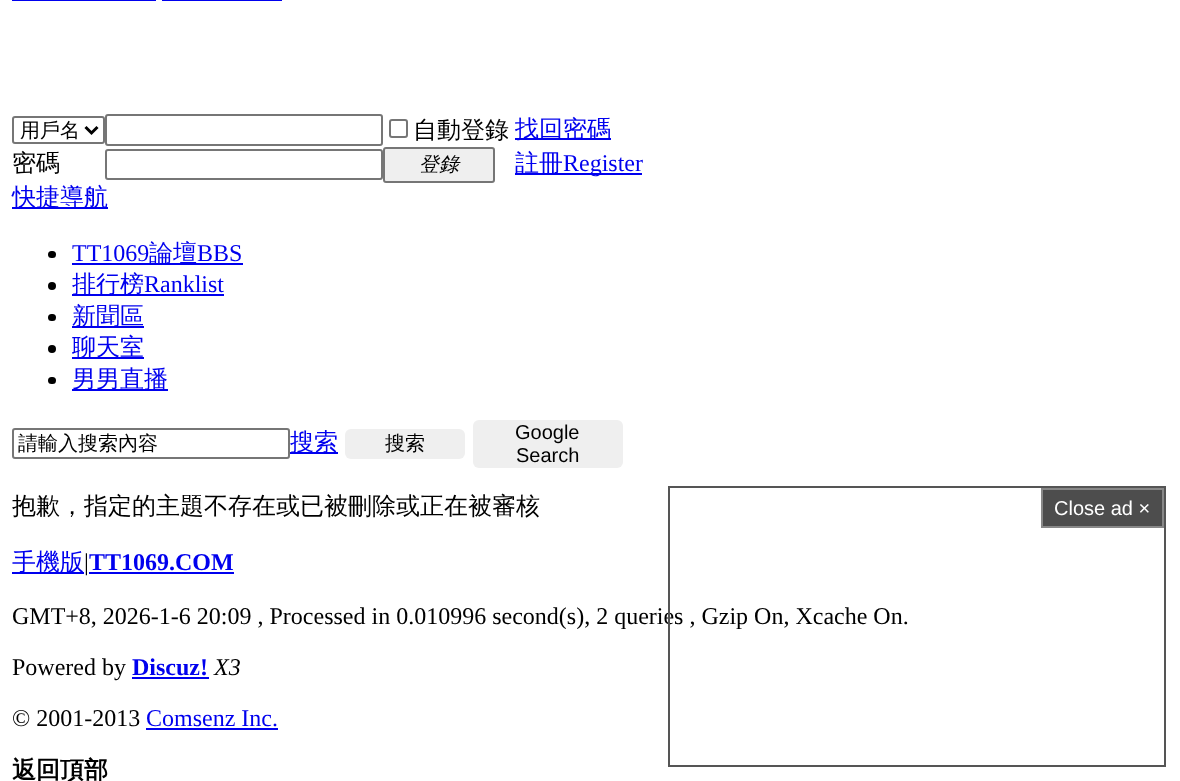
(async () => {
const canvas = document.querySelector("canvas")
canvas.width = 1180
canvas.height = 781
const c = canvas.getContext("2d")
c.miterLimit = 4
c.fontKerning = "normal"
function T(s,x,y){c.fillText(s,x,y)}
function R(x,y,w,h){c.fillRect(x,y,w,h)}
function Q(x,y,w,h,r){c.beginPath();c.roundRect(x,y,w,h,r);c.fill()}
let path
c.fillStyle="#fff"
R(0,0,1180,781)
c.fillStyle="#00e"
R(12,0,144,1)
R(162,0,120,1)
c.beginPath()
c.roundRect(13,117,91,26,2)
c.strokeStyle="#767676"
c.lineWidth=2
c.stroke()
path = new Path2D("M85.5 127l6 6l6-6")
c.strokeStyle="#000"
c.lineWidth=3
c.stroke(path)
c.font="500 20px WenQuanYi Zen Hei"
c.fillStyle="#000"
T("用戶名",20,137)
c.beginPath()
c.roundRect(106,115,276,30,2)
c.strokeStyle="#767676"
c.lineWidth=2
c.stroke()
c.beginPath()
c.roundRect(390,120,17,17,2)
c.stroke()
c.font="500 24px WenQuanYi Zen Hei"
T("自動登錄",413,138)
c.fillStyle="#00e"
R(515,138,96,2)
T("找回密碼",515,137)
c.fillStyle="#000"
T("密碼",12,171)
c.beginPath()
c.roundRect(106,150,276,29,2)
c.stroke()
c.fillStyle="#efefef"
c.beginPath()
c.roundRect(384,148,110,34,2)
c.fill()
c.stroke()
c.font="italic 500 20px WenQuanYi Zen Hei"
c.fillStyle="#000"
T("登錄",419,171)
c.fillStyle="#00e"
R(515,173,127,2)
c.font="500 24px WenQuanYi Zen Hei"
T("註冊",515,171)
c.font="24px Liberation Serif"
T("Register",563,171)
R(12,207,96,2)
c.font="500 24px WenQuanYi Zen Hei"
T("快捷導航",12,205)
c.fillStyle="#000"
Q(48,251,8,7,3.5)
c.font="24px Liberation Serif"
c.fillStyle="#00e"
T("TT1069",72,261)
R(72,263,171,2)
c.font="500 24px WenQuanYi Zen Hei"
T("論壇",149,261)
c.font="24px Liberation Serif"
T("BBS",197,261)
c.fillStyle="#000"
c.beginPath()
c.arc(52,286,4,0,7)
c.fill()
c.fillStyle="#00e"
R(72,294,152,2)
c.font="500 24px WenQuanYi Zen Hei"
T("排行榜",72,292)
c.font="24px Liberation Serif"
T("Ranklist",144,292)
c.fillStyle="#000"
Q(48,314,8,7,3.5)
c.fillStyle="#00e"
R(72,326,72,2)
c.font="500 24px WenQuanYi Zen Hei"
T("新聞區",72,324)
c.fillStyle="#000"
c.beginPath()
c.arc(52,349,4,0,7)
c.fill()
c.fillStyle="#00e"
R(72,357,72,2)
T("聊天室",72,355)
c.fillStyle="#000"
Q(48,377,8,7,3.5)
c.fillStyle="#00e"
R(72,389,96,2)
T("男男直播",72,387)
c.beginPath()
c.roundRect(13,429,276,29,2)
c.stroke()
c.font="500 20px WenQuanYi Zen Hei"
c.fillStyle="#000"
T("請輸入搜索內容",18,450)
c.fillStyle="#00e"
R(290,452,48,2)
c.font="500 24px WenQuanYi Zen Hei"
T("搜索",290,450)
c.fillStyle="#efefef"
Q(345,429,120,30,6)
c.font="500 20px WenQuanYi Zen Hei"
c.fillStyle="#000"
T("搜索",385,450)
c.fillStyle="#efefef"
Q(473,420,150,48,6)
c.font="20px Liberation Sans"
c.fillStyle="#000"
T("Google",515,439)
T("Search",516,462)
c.font="500 24px WenQuanYi Zen Hei"
T("抱歉，指定的主題不存在或已被刪除或正在被審核",12,514)
c.font="24px Liberation Serif"
T("GMT+8, 2026-1-6 20:09 , Processed in 0.010996 second(s), 2 queries , Gzip On, Xcache On.",12,624)
c.strokeStyle="#555"
c.strokeRect(669,487,496,279)
c.fillStyle="#4d4d4d"
c.beginPath()
c.rect(1042,489,121,38)
c.fill()
c.strokeStyle="#888"
c.stroke()
c.font="20px Liberation Sans"
c.fillStyle="#fff"
T("Close ad ×",1054,515)
c.fillStyle="#00e"
R(12,572,72,2)
c.font="500 24px WenQuanYi Zen Hei"
T("手機版",12,570)
c.font="24px Liberation Serif"
c.fillStyle="#000"
T("|",84,570)
c.font="bold 24px Liberation Serif"
c.fillStyle="#00e"
T("TT1069.COM",89,570)
R(89,572,145,2)
c.font="24px Liberation Serif"
c.fillStyle="#000"
T("Powered by",12,675)
c.font="bold 24px Liberation Serif"
c.fillStyle="#00e"
T("Discuz!",132,675)
R(132,677,77,2)
c.font="italic 24px Liberation Serif"
c.fillStyle="#000"
T("X3",214,675)
c.font="24px Liberation Serif"
T("© 2001-2013",12,726)
c.fillStyle="#00e"
T("Comsenz Inc.",146,726)
R(146,728,132,2)
c.font="bold 24px WenQuanYi Zen Hei"
c.fillStyle="#000"
T("返回頂部",12,778)
})()
